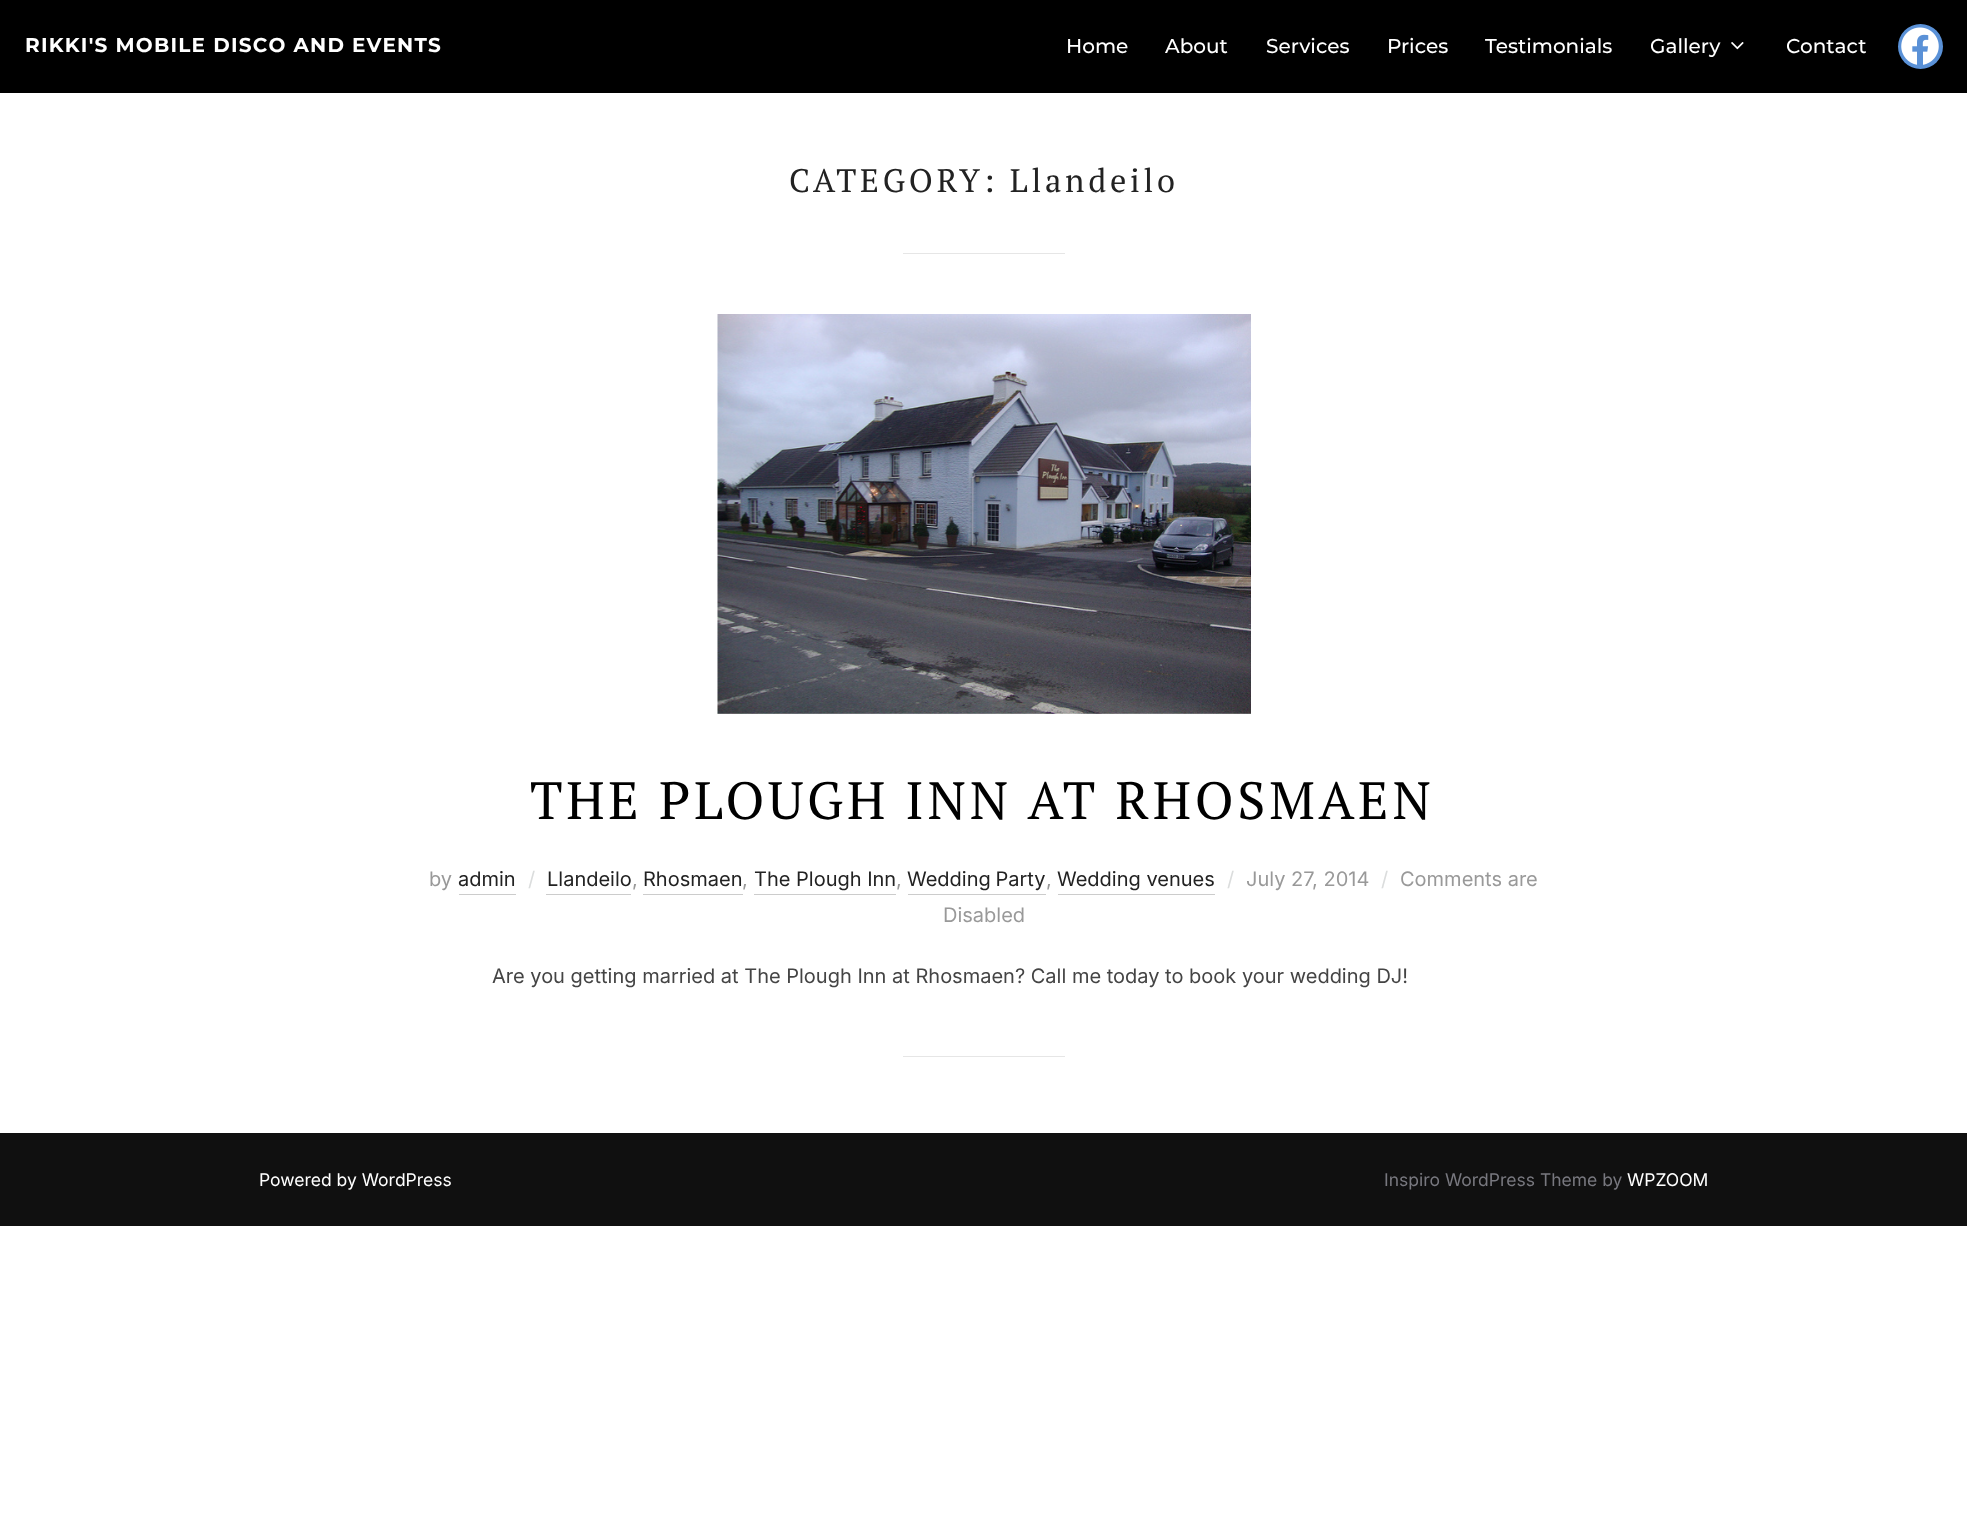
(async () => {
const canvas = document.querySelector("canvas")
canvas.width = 1967
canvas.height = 1532
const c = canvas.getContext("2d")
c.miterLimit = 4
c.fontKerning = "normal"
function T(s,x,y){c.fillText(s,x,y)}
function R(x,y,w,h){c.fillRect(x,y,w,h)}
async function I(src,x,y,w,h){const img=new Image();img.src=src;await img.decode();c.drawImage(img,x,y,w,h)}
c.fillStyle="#fff"
R(0,0,1967,1532)
c.fillStyle="#000"
R(0,0,1967,93)
c.letterSpacing="1.25px"
c.font="bold 20px Montserrat"
c.fillStyle="#fff"
T("RIKKI'S MOBILE DISCO AND EVENTS",25,52)
c.letterSpacing="0px"
c.font="500 20px Montserrat"
T("Home",1066,53)
T("About",1165,53)
T("Services",1266,53)
T("Prices",1387,53)
T("Testimonials",1485,53)
T("Gallery",1650,53)
await I("1.png",1731,42,13,8)
T("Contact",1786,53)
c.fillStyle="#5a91d7"
c.beginPath()
c.arc(1920.5,46.5,22.5,0,7)
c.fill()
await I("2.png",1901,27,38,38)
c.letterSpacing="3.75px"
c.font="32.5px PT Serif"
c.fillStyle="#222"
T("CATEGORY: Llandeilo",789,192)
c.fillStyle="#e6e6e6"
R(903,253,162,1)
await I("3.png",717,314,534,400)
c.font="52.5px PT Serif"
c.fillStyle="#000"
T("THE PLOUGH INN AT RHOSMAEN",530,819)
c.letterSpacing="0px"
c.font="20px Inter"
c.fillStyle="#999"
T("by",429,886)
c.fillStyle="#222"
T("admin",458,886)
c.fillStyle="#ccc"
R(459,894,57,1)
c.fillStyle="#dbdddd"
T("/",528,886)
c.fillStyle="#222"
T("Llandeilo",547,886)
c.fillStyle="#999"
T(",",632,886)
c.fillStyle="#ccc"
R(546,894,85,1)
c.fillStyle="#222"
T("Rhosmaen",643,886)
c.fillStyle="#999"
T(",",742,886)
c.fillStyle="#ccc"
R(643,894,100,1)
c.fillStyle="#222"
T("The Plough Inn",754,886)
c.fillStyle="#999"
T(",",896,886)
c.fillStyle="#ccc"
R(754,894,142,1)
c.wordSpacing="-1px"
c.fillStyle="#222"
T("Wedding Party",907,886)
c.wordSpacing="0px"
c.fillStyle="#999"
T(",",1046,886)
c.fillStyle="#ccc"
R(908,894,138,1)
R(1058,894,157,1)
c.fillStyle="#222"
T("Wedding venues",1057,886)
c.fillStyle="#dbdddd"
T("/",1227,886)
c.fillStyle="#999"
T("July 27, 2014",1246,886)
c.fillStyle="#dbdddd"
T("/",1381,886)
c.fillStyle="#999"
T("Comments are",1400,886)
T("Disabled",943,922)
c.fillStyle="#444"
T("Are you getting married at The Plough Inn at Rhosmaen? Call me today to book your wedding DJ!",492,983)
c.fillStyle="#e6e6e6"
R(903,1056,162,1)
c.fillStyle="#101010"
R(0,1133,1967,93)
c.font="17.5px Inter"
c.fillStyle="#fff"
T("Powered by WordPress",259,1186)
c.fillStyle="#78787f"
T("Inspiro WordPress Theme by",1384,1186)
c.fillStyle="#fff"
T("WPZOOM",1627,1186)
})()
